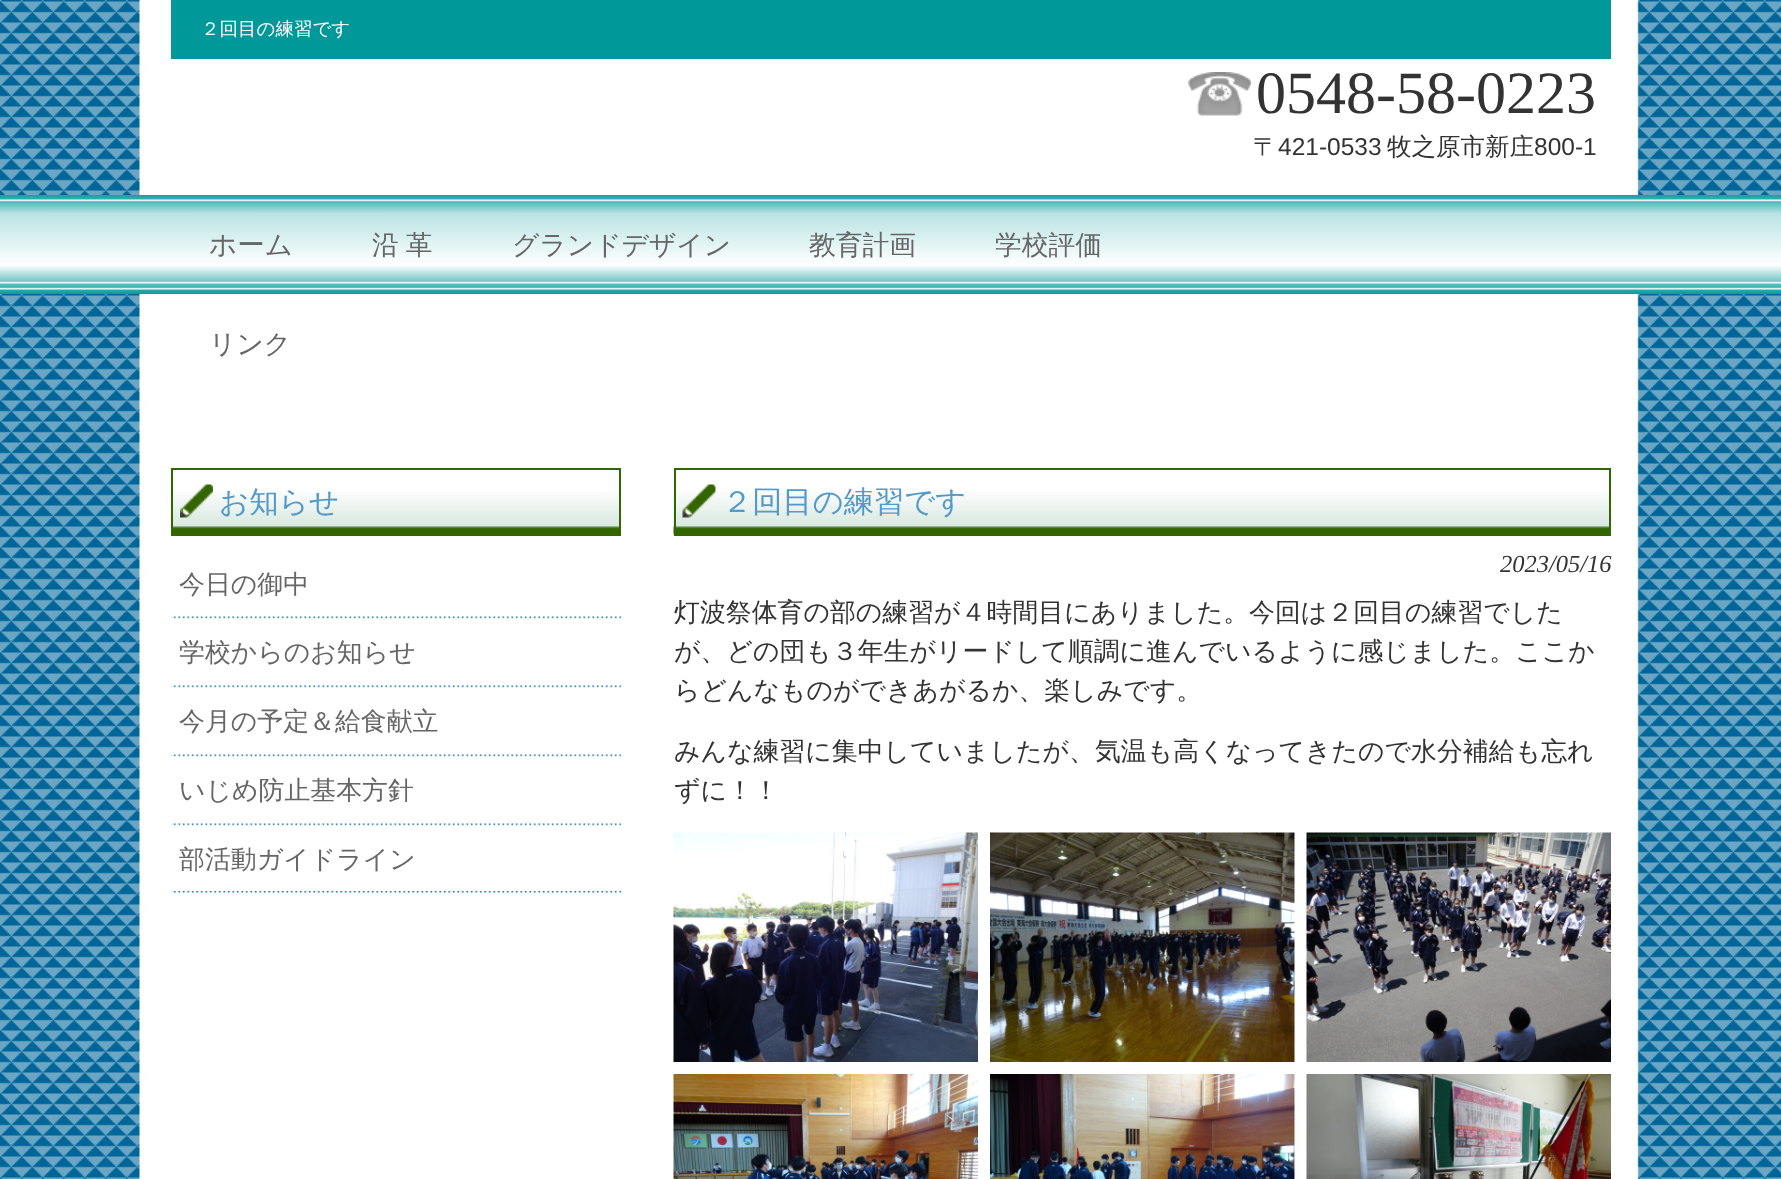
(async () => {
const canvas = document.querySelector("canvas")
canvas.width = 1781
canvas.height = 1179
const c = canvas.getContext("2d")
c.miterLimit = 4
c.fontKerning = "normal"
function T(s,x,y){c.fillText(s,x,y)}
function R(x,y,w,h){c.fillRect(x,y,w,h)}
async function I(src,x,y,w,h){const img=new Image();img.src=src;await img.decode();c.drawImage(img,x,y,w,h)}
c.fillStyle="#fff"
R(0,0,1781,1179)
await I("1.png",0,0,1781,1179)
c.fillStyle="#009899"
R(171,0,1440,59)
c.font="500 18.5px WenQuanYi Zen Hei"
c.fillStyle="#fff"
T("２回目の練習です",201,35)
await I("2.png",1188,72,63,44)
c.font="60px Liberation Serif"
c.fillStyle="#333"
T("0548-58-0223",1256,113)
c.font="500 24.5px WenQuanYi Zen Hei"
T("〒",1253,155)
c.font="24.5px Liberation Sans"
T("421-0533",1278,155)
c.font="500 24.5px WenQuanYi Zen Hei"
T("牧之原市新庄",1387,155)
c.font="24.5px Liberation Sans"
T("800-1",1534,155)
await I("3.png",0,195,1781,99)
c.wordSpacing="-1px"
c.font="500 26.75px WenQuanYi Zen Hei"
c.fillStyle="#666"
T("沿 革",372,254)
c.wordSpacing="0px"
T("グランドデザイン",512,254)
T("教育計画",809,254)
T("学校評価",995,254)
T("リンク",209,353)
c.font="500 27.5px WenQuanYi Zen Hei"
T("ホーム",209,254)
await I("4.png",173,492,446,42)
c.strokeStyle="#326601"
c.lineWidth=2
c.strokeRect(172,469,448,66)
await I("5.png",180,484,33,34)
c.font="500 29.5px WenQuanYi Zen Hei"
c.fillStyle="#5399ca"
T("お知らせ",219,512)
await I("6.png",171,616,450,3)
c.font="500 25.9px WenQuanYi Zen Hei"
c.fillStyle="#666"
T("今日の御中",179,593)
await I("6.png",171,685,450,3)
T("学校からのお知らせ",179,661)
await I("6.png",171,754,450,3)
T("今月の予定＆給食献立",179,730)
await I("6.png",171,823,450,3)
T("いじめ防止基本方針",179,799)
await I("7.png",171,891,450,2)
T("部活動ガイドライン",179,868)
await I("8.png",673,492,936,42)
c.strokeRect(675,469,935,66)
await I("9.png",682,484,34,34)
c.font="500 30.25px WenQuanYi Zen Hei"
c.fillStyle="#5399ca"
T("２回目の練習です",722,512)
c.font="italic 24.5px Liberation Serif"
c.fillStyle="#333"
T("2023/05/16",1500,572)
c.font="500 25.9px WenQuanYi Zen Hei"
T("灯波祭体育の部の練習が４時間目にありました。今回は２回目の練習でした",674,621)
T("が、どの団も３年生がリードして順調に進んでいるように感じました。ここか",674,660)
T("らどんなものができあがるか、楽しみです。",674,699)
T("みんな練習に集中していましたが、気温も高くなってきたので水分補給も忘れ",674,760)
T("ずに！！",674,799)
await I("10.png",673,832,305,230)
await I("11.png",990,832,305,230)
await I("12.png",1306,832,305,230)
await I("13.png",673,1074,305,105)
await I("14.png",990,1074,305,105)
await I("15.png",1306,1074,305,105)
})()
